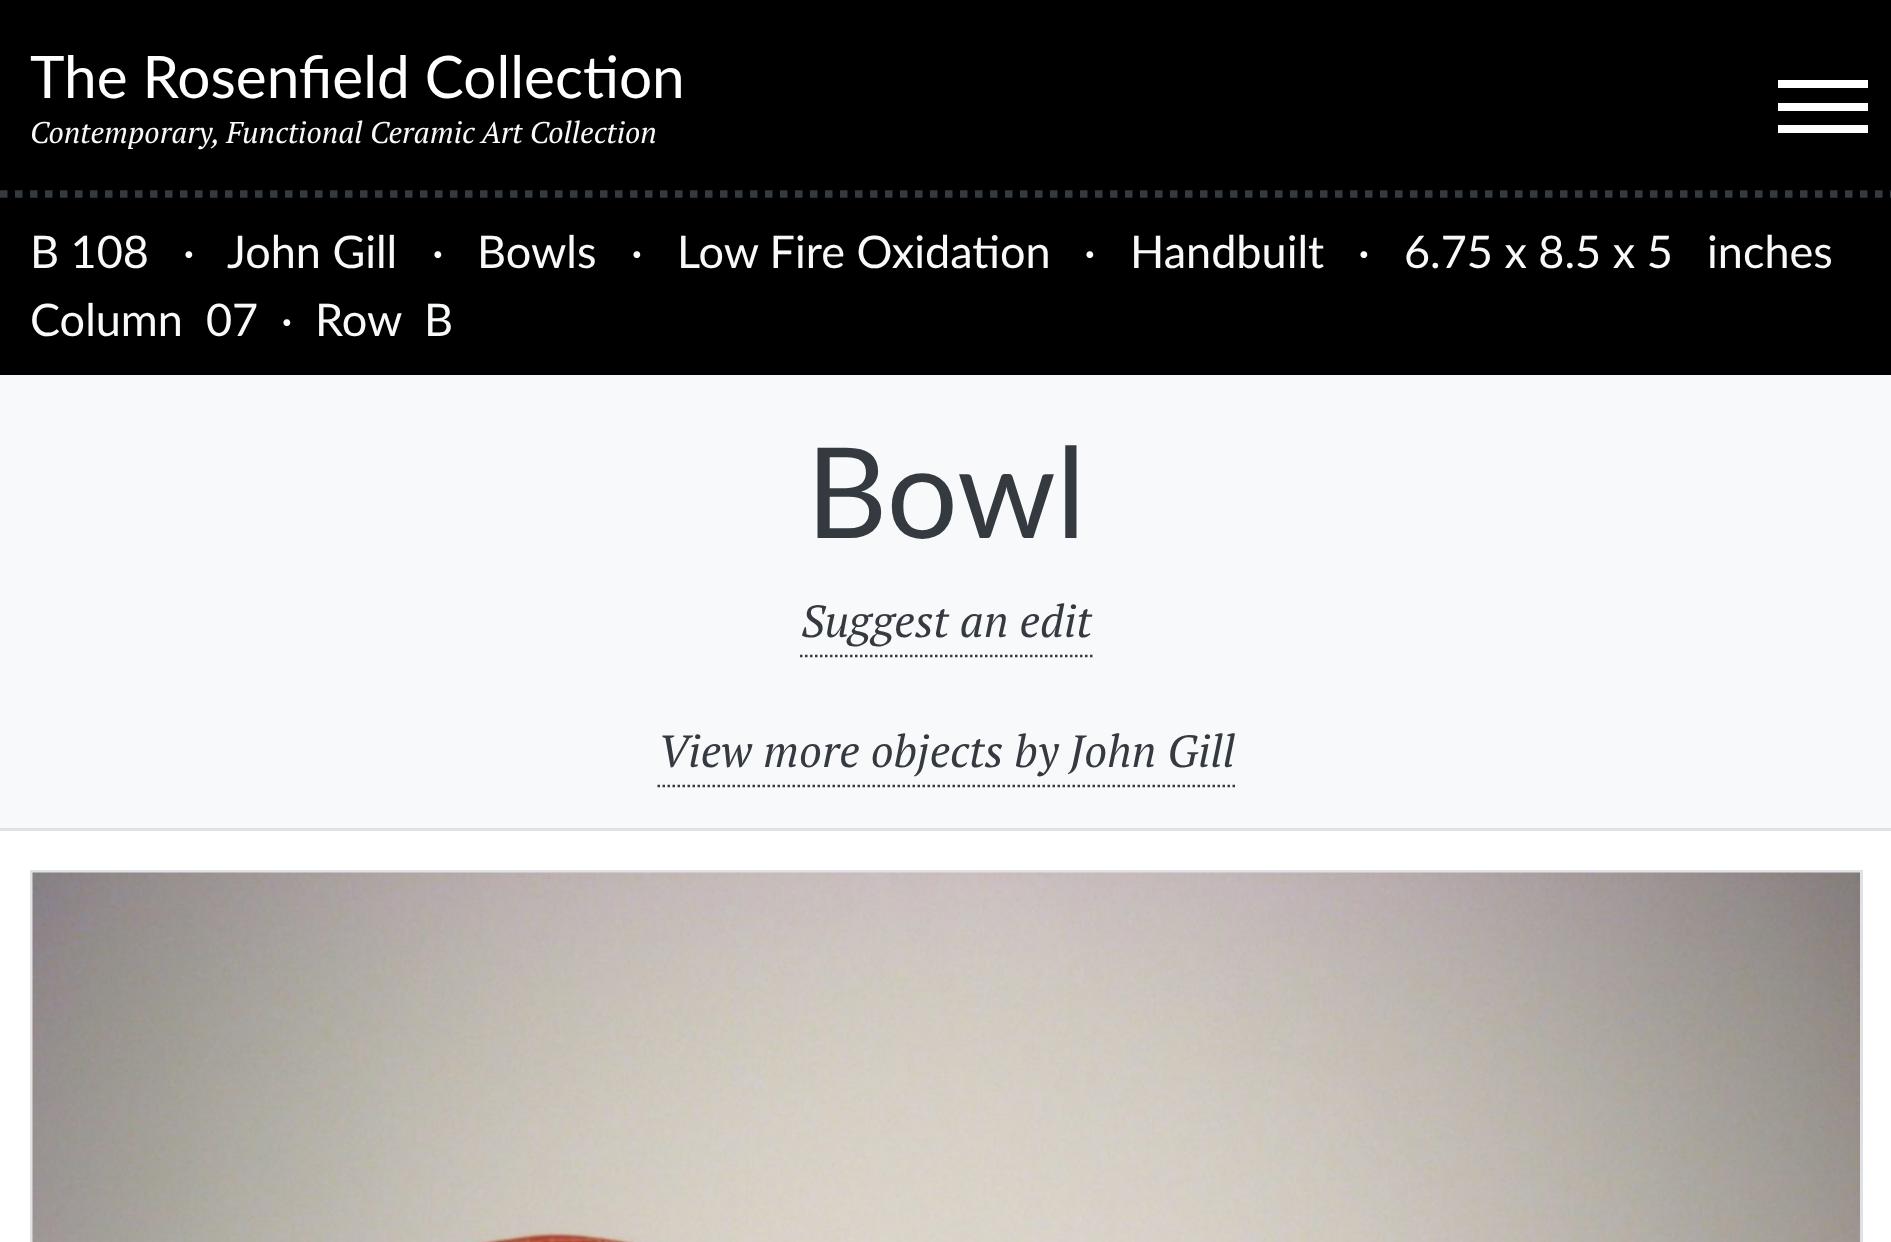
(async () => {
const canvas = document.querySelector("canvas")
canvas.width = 1891
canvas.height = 1242
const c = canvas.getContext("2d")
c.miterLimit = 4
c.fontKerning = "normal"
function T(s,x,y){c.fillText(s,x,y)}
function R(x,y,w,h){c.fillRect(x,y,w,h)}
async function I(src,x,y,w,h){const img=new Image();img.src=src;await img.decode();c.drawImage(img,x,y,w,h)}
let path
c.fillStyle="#fff"
R(0,0,1891,1242)
c.fillStyle="#000"
R(0,0,1891,375)
c.font="58.5px Lato"
c.fillStyle="#fff"
T("The Rosenfield Collection",30,98)
c.font="italic 30px PT Serif"
c.fillStyle="#f8f9fa"
T("Contemporary, Functional Ceramic Art Collection",30,143)
c.fillStyle="#fff"
R(1778,103,90,8)
R(1778,80,90,8)
R(1778,125,90,8)
path = new Path2D("M0 194h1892.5")
c.strokeStyle="#343a40"
c.lineWidth=7.5
c.setLineDash([7.5,7.5])
c.stroke(path)
c.font="45px Lato"
c.fillStyle="#f8f9fa"
T("B 108",30,268)
c.fillStyle="#fff"
T("·",183,268)
c.fillStyle="#f8f9fa"
T("John Gill",227,268)
c.fillStyle="#fff"
T("·",432,268)
c.fillStyle="#f8f9fa"
T("Bowls",477,268)
c.fillStyle="#fff"
T("·",631,268)
c.fillStyle="#f8f9fa"
T("Low Fire Oxidation",677,268)
c.fillStyle="#fff"
T("·",1084,268)
c.fillStyle="#f8f9fa"
T("Handbuilt",1130,268)
c.fillStyle="#fff"
T("·",1358,268)
c.fillStyle="#f8f9fa"
T("6.75 x 8.5 x 5",1404,268)
T("inches",1707,268)
T("Column",30,336)
T("07",206,336)
c.fillStyle="#fff"
T("·",281,336)
c.fillStyle="#f8f9fa"
T("Row",315,336)
T("B",424,336)
R(0,375,1891,453)
c.fillStyle="#dee2e6"
R(0,828,1891,3)
c.font="126px Lato"
c.fillStyle="#343a40"
T("Bowl",806,538)
path = new Path2D("M800 656h292.5")
c.lineWidth=2.5
c.setLineDash([2.5,2.5])
c.stroke(path)
c.font="italic 45px PT Serif"
T("Suggest an edit",801,637)
path = new Path2D("M657.5 786h577.5")
c.stroke(path)
T("View more objects by John Gill",658,767)
c.strokeStyle="#dee2e6"
c.lineWidth=3
c.setLineDash([])
c.strokeRect(31.5,871.5,1830,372)
await I("1.png",32,872,1828,370)
})()
